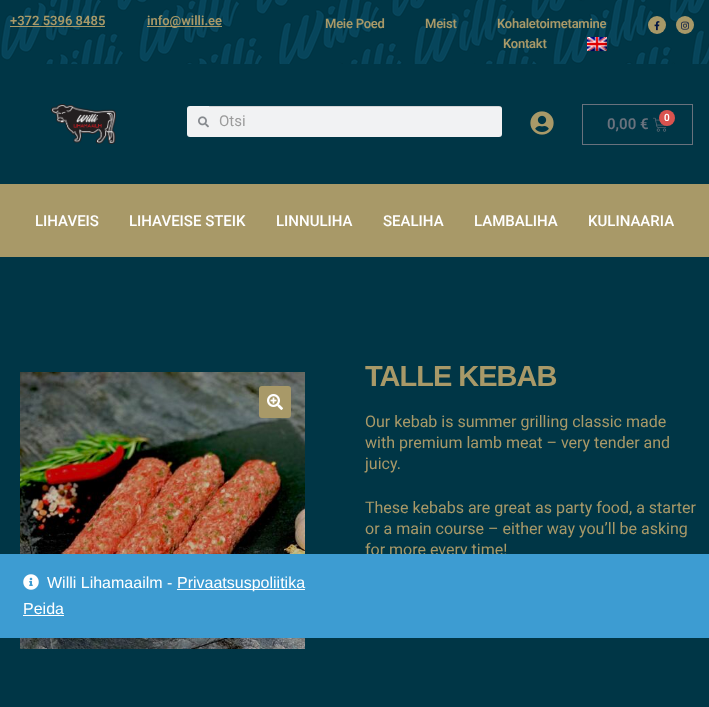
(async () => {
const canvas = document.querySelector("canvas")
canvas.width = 709
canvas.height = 707
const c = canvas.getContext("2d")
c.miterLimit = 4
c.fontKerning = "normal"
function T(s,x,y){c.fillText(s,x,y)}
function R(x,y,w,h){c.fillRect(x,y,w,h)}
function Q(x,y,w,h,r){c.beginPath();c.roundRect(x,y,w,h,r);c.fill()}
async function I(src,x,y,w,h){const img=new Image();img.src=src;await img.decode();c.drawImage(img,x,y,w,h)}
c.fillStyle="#003646"
R(0,0,709,707)
await I("1.png",0,0,709,64)
c.font="600 13px Roboto"
c.fillStyle="#a89968"
T("+372 5396 8485",10,25)
R(10,26,95,1)
R(147,26,75,1)
T("info@willi.ee",147,25)
c.letterSpacing="-0.25px"
T("Meie Poed",325,28)
T("Meist",425,28)
T("Kohaletoimetamine",497,28)
T("Kontakt",503,48)
await I("2.png",587,37,20,14)
c.beginPath()
c.arc(657,25,9,0,7)
c.fill()
await I("3.png",654,21,6,10)
c.beginPath()
c.arc(685,25,9,0,7)
c.fill()
await I("4.png",681,21,8,9)
await I("5.png",51,104,65,40)
c.fillStyle="#f1f2f3"
Q(187,106,315,31,3)
await I("6.png",198,116,11,12)
c.fillStyle="#0000001f"
R(209,106,293,1)
c.letterSpacing="0px"
c.font="15px Roboto"
c.fillStyle="#9b9b9b"
T("Otsi",219,126)
await I("7.png",530,111,24,24)
c.strokeStyle="#69727d"
c.strokeRect(582.5,104.5,110,40)
c.font="600 15px Roboto"
c.fillStyle="#69727d"
T("0,00 €",607,129)
await I("8.png",653,117,14,15)
c.fillStyle="#d9534f"
c.beginPath()
c.arc(667,118,8,0,7)
c.fill()
c.font="600 10px Roboto"
c.fillStyle="#fff"
T("0",664,121)
c.fillStyle="#a89968"
R(0,184,709,73)
c.font="500 15px Roboto"
c.fillStyle="#fff"
T("LIHAVEIS",35,226)
T("LIHAVEISE STEIK",129,226)
T("LINNULIHA",276,226)
T("SEALIHA",383,226)
T("LAMBALIHA",474,226)
T("KULINAARIA",588,226)
await I("9.png",20,372,285,277)
c.fillStyle="#a89968"
Q(259,386,32,32,3)
await I("10.png",267,394,16,16)
c.letterSpacing="-1px"
c.font="bold 29px Liberation Sans"
T("TALLE KEBAB",365,386)
c.letterSpacing="0px"
c.font="16px Roboto"
T("Our kebab is summer grilling classic made",365,427)
T("with premium lamb meat – very tender and",365,448)
T("juicy.",365,469)
T("These kebabs are great as party food, a starter",365,513)
T("or a main course – either way you’ll be asking",365,534)
T("for more every time!",365,555)
c.fillStyle="#3d9cd2"
R(0,554,709,84)
await I("11.png",23,574,16,16)
c.font="16px Liberation Sans"
c.fillStyle="#fff"
T("Willi Lihamaailm -",47,588)
R(177,589,128,1)
T("Privaatsuspoliitika",177,588)
T("Peida",23,614)
R(23,615,41,1)
})()
